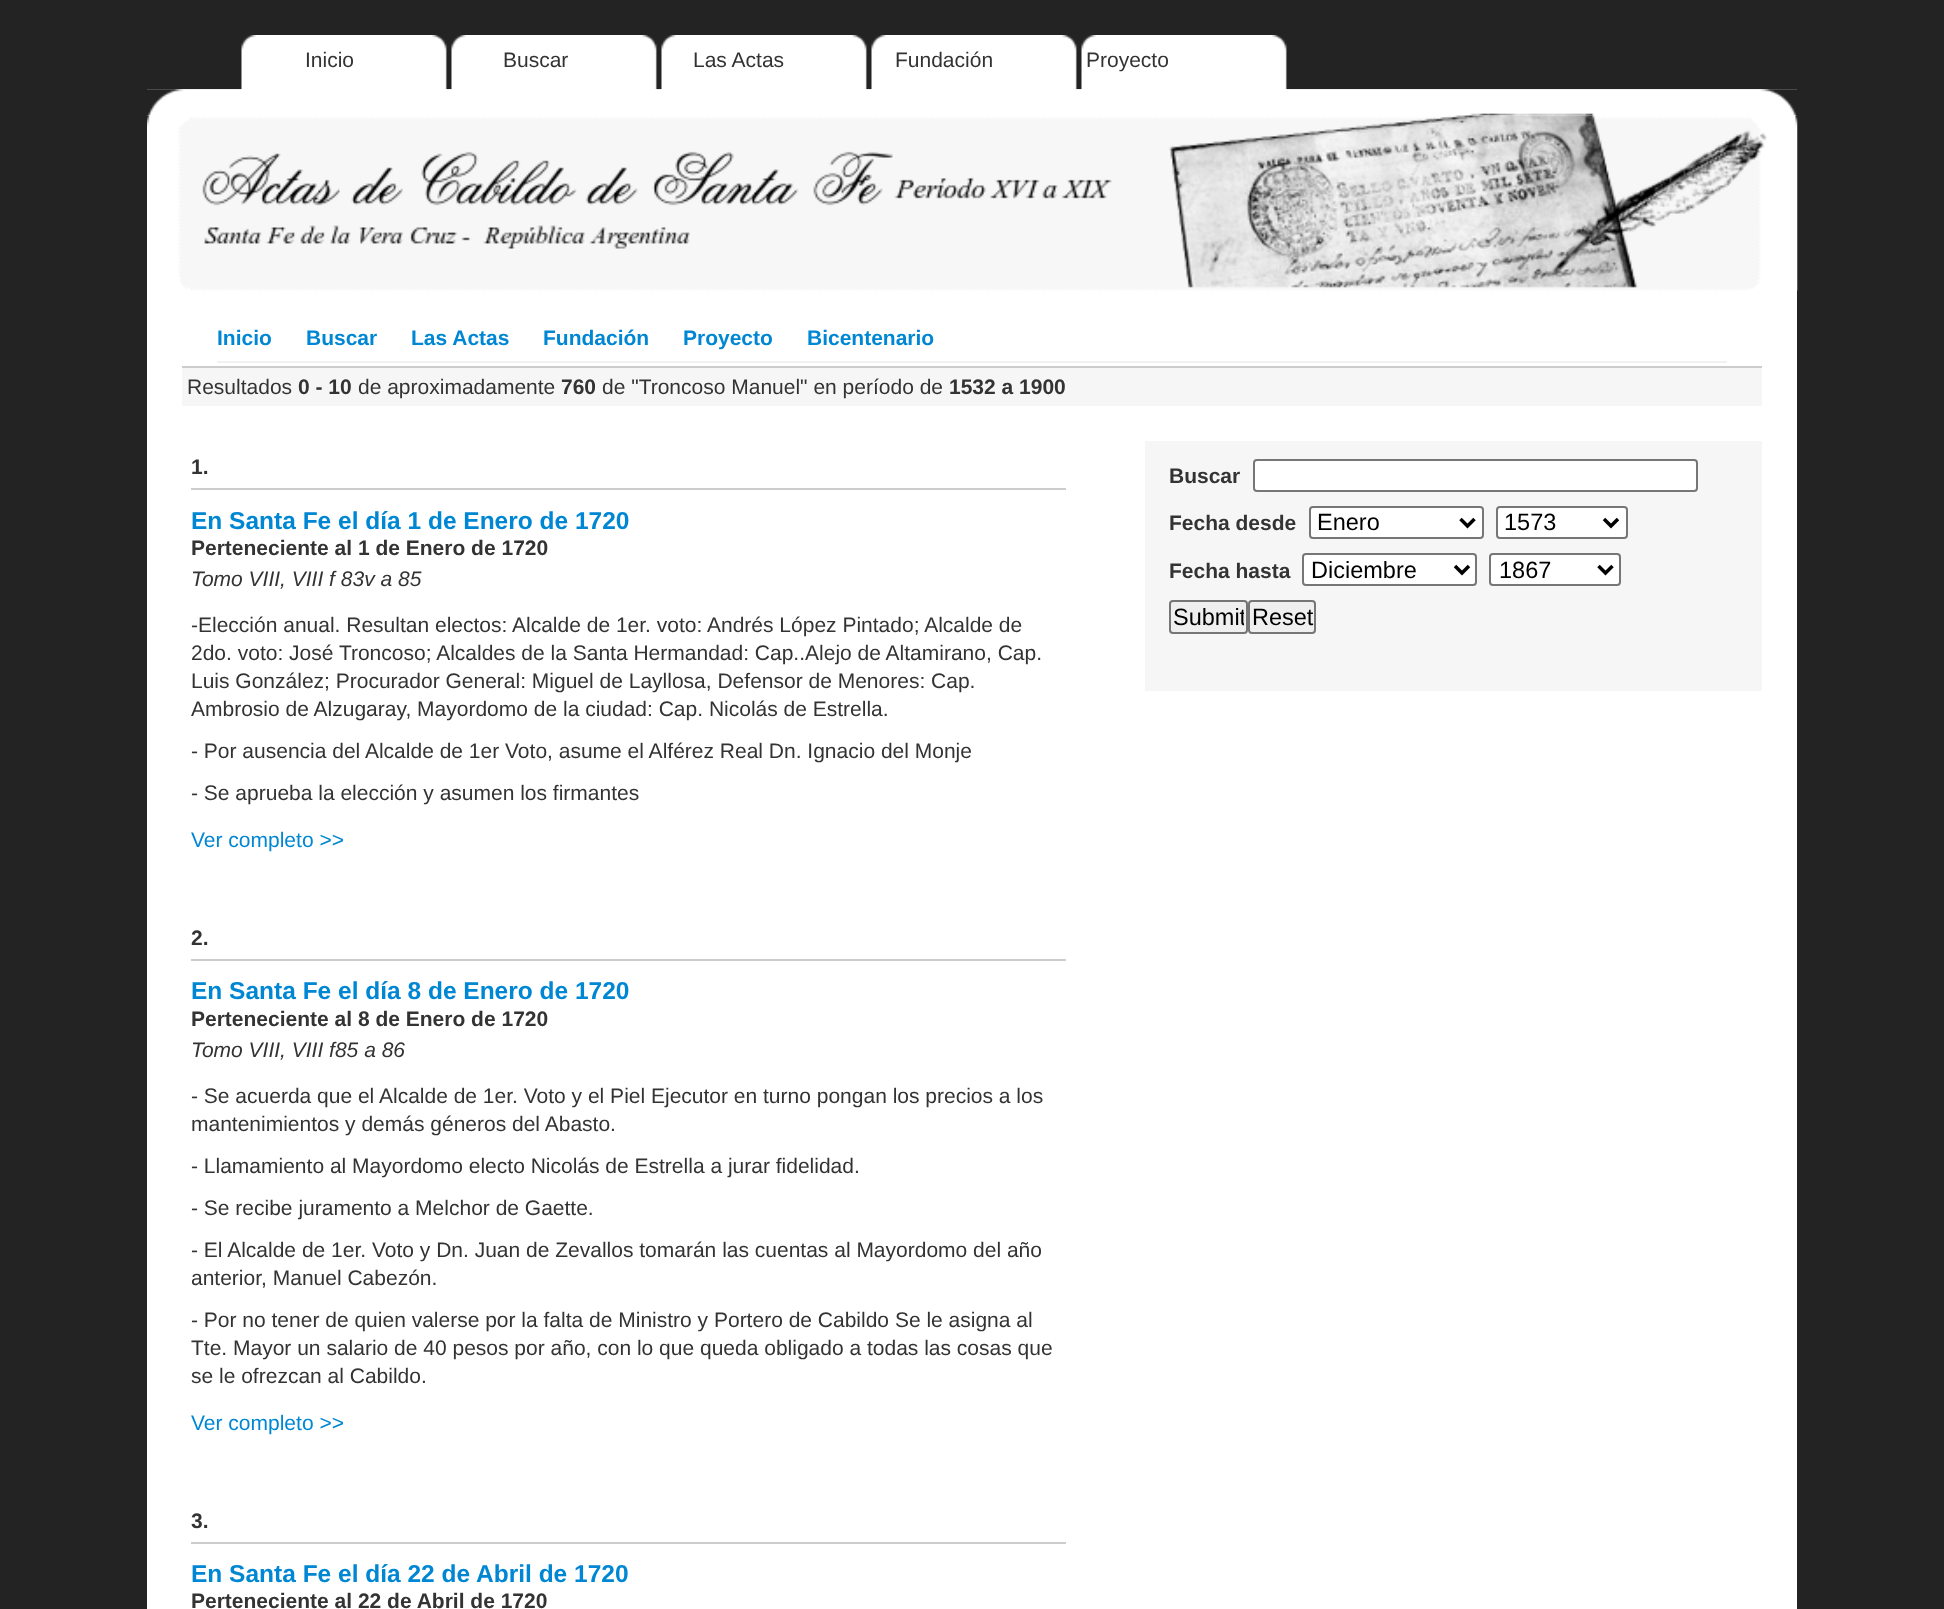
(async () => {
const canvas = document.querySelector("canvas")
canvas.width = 1944
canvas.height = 1609
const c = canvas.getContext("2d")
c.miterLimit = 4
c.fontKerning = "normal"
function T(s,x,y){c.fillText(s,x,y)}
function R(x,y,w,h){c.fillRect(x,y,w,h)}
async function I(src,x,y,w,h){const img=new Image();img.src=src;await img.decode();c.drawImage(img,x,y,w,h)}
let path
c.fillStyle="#232323"
R(0,0,1944,1609)
c.fillStyle="#fff"
R(147,89,1650,1520)
await I("1.png",147,35,1650,55)
c.font="21px Liberation Sans"
c.fillStyle="#333"
T("Inicio",305,67)
T("Buscar",503,67)
T("Las Actas",693,67)
T("Fundación",895,67)
T("Proyecto",1086,67)
await I("2.png",147,89,1650,27)
await I("3.png",147,115,1651,176)
c.fillStyle="#f1f1f1"
R(217,361,1510,2)
c.font="bold 21px Liberation Sans"
c.fillStyle="#0087d4"
T("Inicio",217,345)
T("Buscar",306,345)
T("Las Actas",411,345)
T("Fundación",543,345)
T("Proyecto",683,345)
T("Bicentenario",807,345)
c.fillStyle="#f6f6f6"
R(182,368,1580,38)
c.fillStyle="#ccc"
R(182,366,1580,2)
c.font="21px Liberation Sans"
c.fillStyle="#333"
T("Resultados",187,394)
c.font="bold 21px Liberation Sans"
T("0 - 10",298,394)
c.font="21px Liberation Sans"
T("de aproximadamente",358,394)
c.font="bold 21px Liberation Sans"
T("760",561,394)
c.font="21px Liberation Sans"
T("de \"Troncoso Manuel\" en período de",602,394)
c.font="bold 21px Liberation Sans"
T("1532 a 1900",949,394)
c.fillStyle="#ccc"
R(191,488,875,2)
c.fillStyle="#333"
T("1.",191,474)
c.font="bold 24.5px Liberation Sans"
c.fillStyle="#0087d4"
T("En Santa Fe el día 1 de Enero de 1720",191,529)
c.font="bold 21px Liberation Sans"
c.fillStyle="#333"
T("Perteneciente al 1 de Enero de 1720",191,555)
c.font="italic 21px Liberation Sans"
T("Tomo VIII, VIII f 83v a 85",191,586)
c.font="21px Liberation Sans"
T("-Elección anual. Resultan electos: Alcalde de 1er. voto: Andrés López Pintado; Alcalde de",191,632)
T("2do. voto: José Troncoso; Alcaldes de la Santa Hermandad: Cap..Alejo de Altamirano, Cap.",191,660)
T("Luis González; Procurador General: Miguel de Layllosa, Defensor de Menores: Cap.",191,688)
T("Ambrosio de Alzugaray, Mayordomo de la ciudad: Cap. Nicolás de Estrella.",191,716)
T("- Por ausencia del Alcalde de 1er Voto, asume el Alférez Real Dn. Ignacio del Monje",191,758)
T("- Se aprueba la elección y asumen los firmantes",191,800)
c.fillStyle="#0087d4"
T("Ver completo >>",191,847)
c.fillStyle="#ccc"
R(191,959,875,2)
c.font="bold 21px Liberation Sans"
c.fillStyle="#333"
T("2.",191,945)
c.font="bold 24.5px Liberation Sans"
c.fillStyle="#0087d4"
T("En Santa Fe el día 8 de Enero de 1720",191,999)
c.font="bold 21px Liberation Sans"
c.fillStyle="#333"
T("Perteneciente al 8 de Enero de 1720",191,1026)
c.font="italic 21px Liberation Sans"
T("Tomo VIII, VIII f85 a 86",191,1057)
c.font="21px Liberation Sans"
T("- Se acuerda que el Alcalde de 1er. Voto y el Piel Ejecutor en turno pongan los precios a los",191,1103)
T("mantenimientos y demás géneros del Abasto.",191,1131)
T("- Llamamiento al Mayordomo electo Nicolás de Estrella a jurar fidelidad.",191,1173)
T("- Se recibe juramento a Melchor de Gaette.",191,1215)
T("- El Alcalde de 1er. Voto y Dn. Juan de Zevallos tomarán las cuentas al Mayordomo del año",191,1257)
T("anterior, Manuel Cabezón.",191,1285)
T("- Por no tener de quien valerse por la falta de Ministro y Portero de Cabildo Se le asigna al",191,1327)
T("Tte. Mayor un salario de 40 pesos por año, con lo que queda obligado a todas las cosas que",191,1355)
T("se le ofrezcan al Cabildo.",191,1383)
c.fillStyle="#0087d4"
T("Ver completo >>",191,1430)
c.fillStyle="#ccc"
R(191,1542,875,2)
c.font="bold 21px Liberation Sans"
c.fillStyle="#333"
T("3.",191,1528)
c.font="bold 24.5px Liberation Sans"
c.fillStyle="#0087d4"
T("En Santa Fe el día 22 de Abril de 1720",191,1582)
c.font="bold 21px Liberation Sans"
c.fillStyle="#333"
T("Perteneciente al 22 de Abril de 1720",191,1608)
c.fillStyle="#f6f6f6"
R(1145,441,617,250)
c.fillStyle="#333"
T("Buscar",1169,483)
c.fillStyle="#fff"
c.beginPath()
c.roundRect(1254,460,443,31,3)
c.fill()
c.strokeStyle="#767676"
c.lineWidth=2
c.stroke()
c.fillStyle="#333"
T("Fecha desde",1169,530)
c.fillStyle="#fff"
c.beginPath()
c.roundRect(1310,507,173,31,3)
c.fill()
c.stroke()
path = new Path2D("M1460.5 519l7 7l7-7")
c.strokeStyle="#000"
c.lineWidth=3.5
c.stroke(path)
c.font="23.5px Liberation Sans"
c.fillStyle="#000"
T("Enero",1317,530)
c.fillStyle="#fff"
c.beginPath()
c.roundRect(1497,507,130,31,3)
c.fill()
c.strokeStyle="#767676"
c.lineWidth=2
c.stroke()
path = new Path2D("M1604 519l7 7l7-7")
c.strokeStyle="#000"
c.lineWidth=3.5
c.stroke(path)
c.fillStyle="#000"
T("1573",1504,530)
c.font="bold 21px Liberation Sans"
c.fillStyle="#333"
T("Fecha hasta",1169,578)
c.fillStyle="#fff"
c.beginPath()
c.roundRect(1303,554,173,31,3)
c.fill()
c.strokeStyle="#767676"
c.lineWidth=2
c.stroke()
path = new Path2D("M1455 566l7 7l7-7")
c.strokeStyle="#000"
c.lineWidth=3.5
c.stroke(path)
c.font="23.5px Liberation Sans"
c.fillStyle="#000"
T("Diciembre",1311,578)
c.fillStyle="#fff"
c.beginPath()
c.roundRect(1490,554,130,31,3)
c.fill()
c.strokeStyle="#767676"
c.lineWidth=2
c.stroke()
path = new Path2D("M1598.5 566l7 7l7-7")
c.strokeStyle="#000"
c.lineWidth=3.5
c.stroke(path)
c.fillStyle="#000"
T("1867",1499,578)
c.fillStyle="#efefef"
c.beginPath()
c.roundRect(1170,601,77,32,3)
c.fill()
c.strokeStyle="#767676"
c.lineWidth=2
c.stroke()
c.save()
c.beginPath()
c.rect(1173,604,71,26)
c.clip()
c.fillStyle="#000"
T("Submit",1173,625)
c.restore()
c.beginPath()
c.roundRect(1249,601,66,32,3)
c.fill()
c.stroke()
c.fillStyle="#000"
T("Reset",1252,625)
})()
